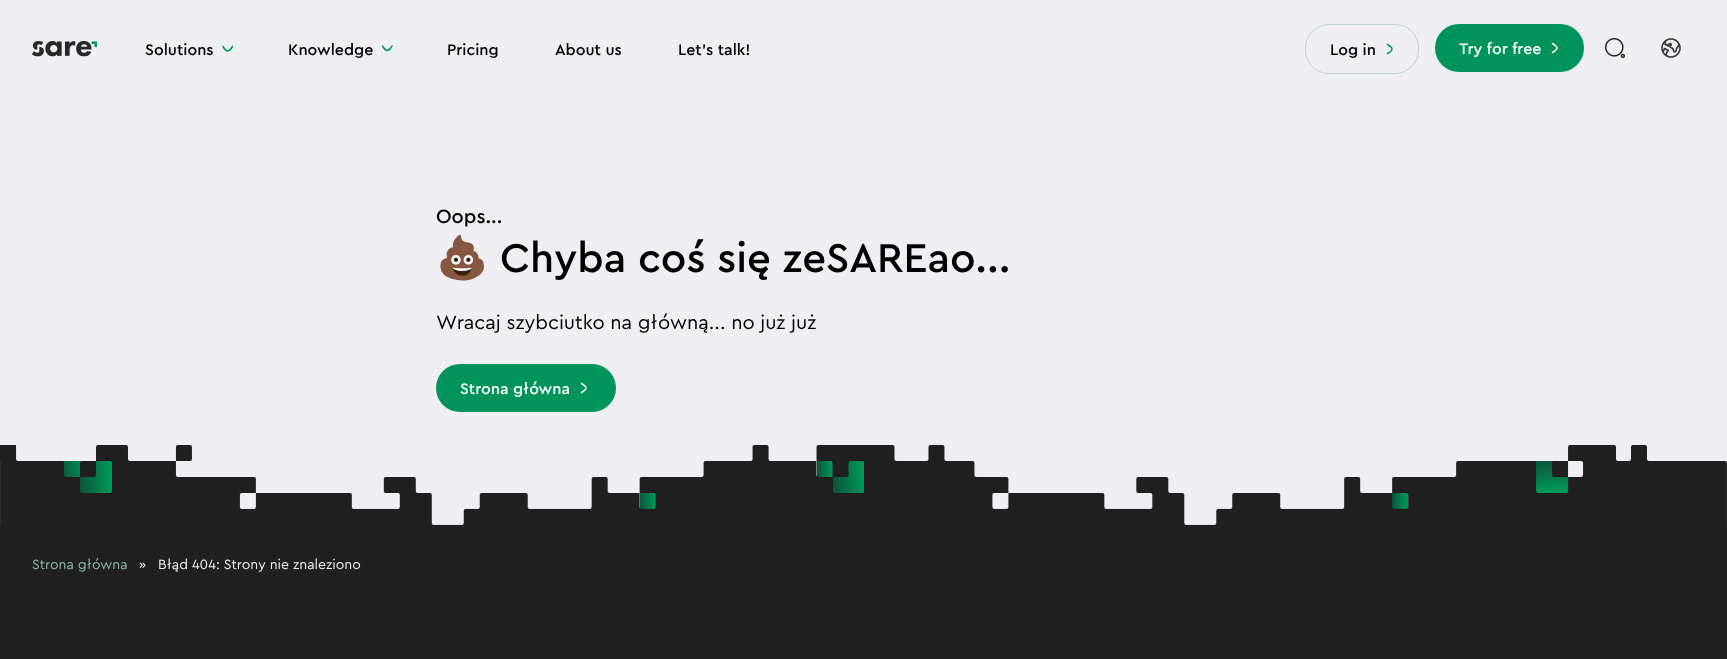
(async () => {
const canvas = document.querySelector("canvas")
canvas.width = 1727
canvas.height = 659
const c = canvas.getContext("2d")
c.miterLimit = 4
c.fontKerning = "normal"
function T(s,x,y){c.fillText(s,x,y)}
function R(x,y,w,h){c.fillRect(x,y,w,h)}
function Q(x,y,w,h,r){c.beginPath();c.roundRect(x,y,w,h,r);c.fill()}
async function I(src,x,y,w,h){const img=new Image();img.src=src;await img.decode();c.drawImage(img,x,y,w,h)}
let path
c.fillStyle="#efeff3"
R(0,0,1727,659)
await I("1.png",32,41,65,16)
c.font="500 16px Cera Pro"
c.fillStyle="#000"
T("Solutions",145,55)
path = new Path2D("M232.5 46.5c-3.5 6-6 6-9.5 0")
c.strokeStyle="#009d5b"
c.lineWidth=1.5
c.lineCap="round"
c.lineJoin="round"
c.stroke(path)
T("Knowledge",288,55)
path = new Path2D("M392 46c-3.5 6-6 6-9.5 0")
c.stroke(path)
T("Pricing",447,55)
T("About us",555,55)
T("Let’s talk!",678,55)
c.beginPath()
c.roundRect(1305.5,24.5,113,49,23.5)
c.strokeStyle="#c1d3d0"
c.lineWidth=1
c.lineJoin="miter"
c.stroke()
T("Log in",1330,55)
path = new Path2D("M1387.5 44.5c6 3.5 6 5.5 0 9")
c.strokeStyle="#009d5b"
c.lineWidth=1.5
c.lineJoin="round"
c.stroke(path)
c.fillStyle="#00935c"
Q(1435,24,149,48,24)
c.fillStyle="#fff"
T("Try for free",1459,54)
path = new Path2D("M1552.5 43.5c6 3.5 6 5.5 0 9")
c.strokeStyle="#fff"
c.stroke(path)
await I("2.png",1605,38,20,20)
await I("3.png",1661,38,20,20)
c.font="500 20px Cera Pro"
c.fillStyle="#000"
T("Oops...",436,223)
c.font="bold 42px Noto Color Emoji"
T("💩",436,272)
c.font="500 42px Cera Pro"
T("Chyba coś się zeSAREao...",500,272)
c.font="20px Cera Pro"
T("Wracaj szybciutko na główną... no już już",436,329)
c.fillStyle="#00935c"
Q(436,364,180,48,24)
c.font="500 16px Cera Pro"
c.fillStyle="#fff"
T("Strona główna",460,394)
path = new Path2D("M581.5 383.5c6 3.5 6 5.5 0 9")
c.stroke(path)
c.fillStyle="#202020"
R(0,540,1727,119)
await I("4.png",0,445,1727,95)
c.font="14px Cera Pro"
c.fillStyle="#93b6ac"
T("Strona główna",32,569)
c.fillStyle="#efeff3"
T("»",139,569)
T("Błąd 404: Strony nie znaleziono",158,569)
})()
